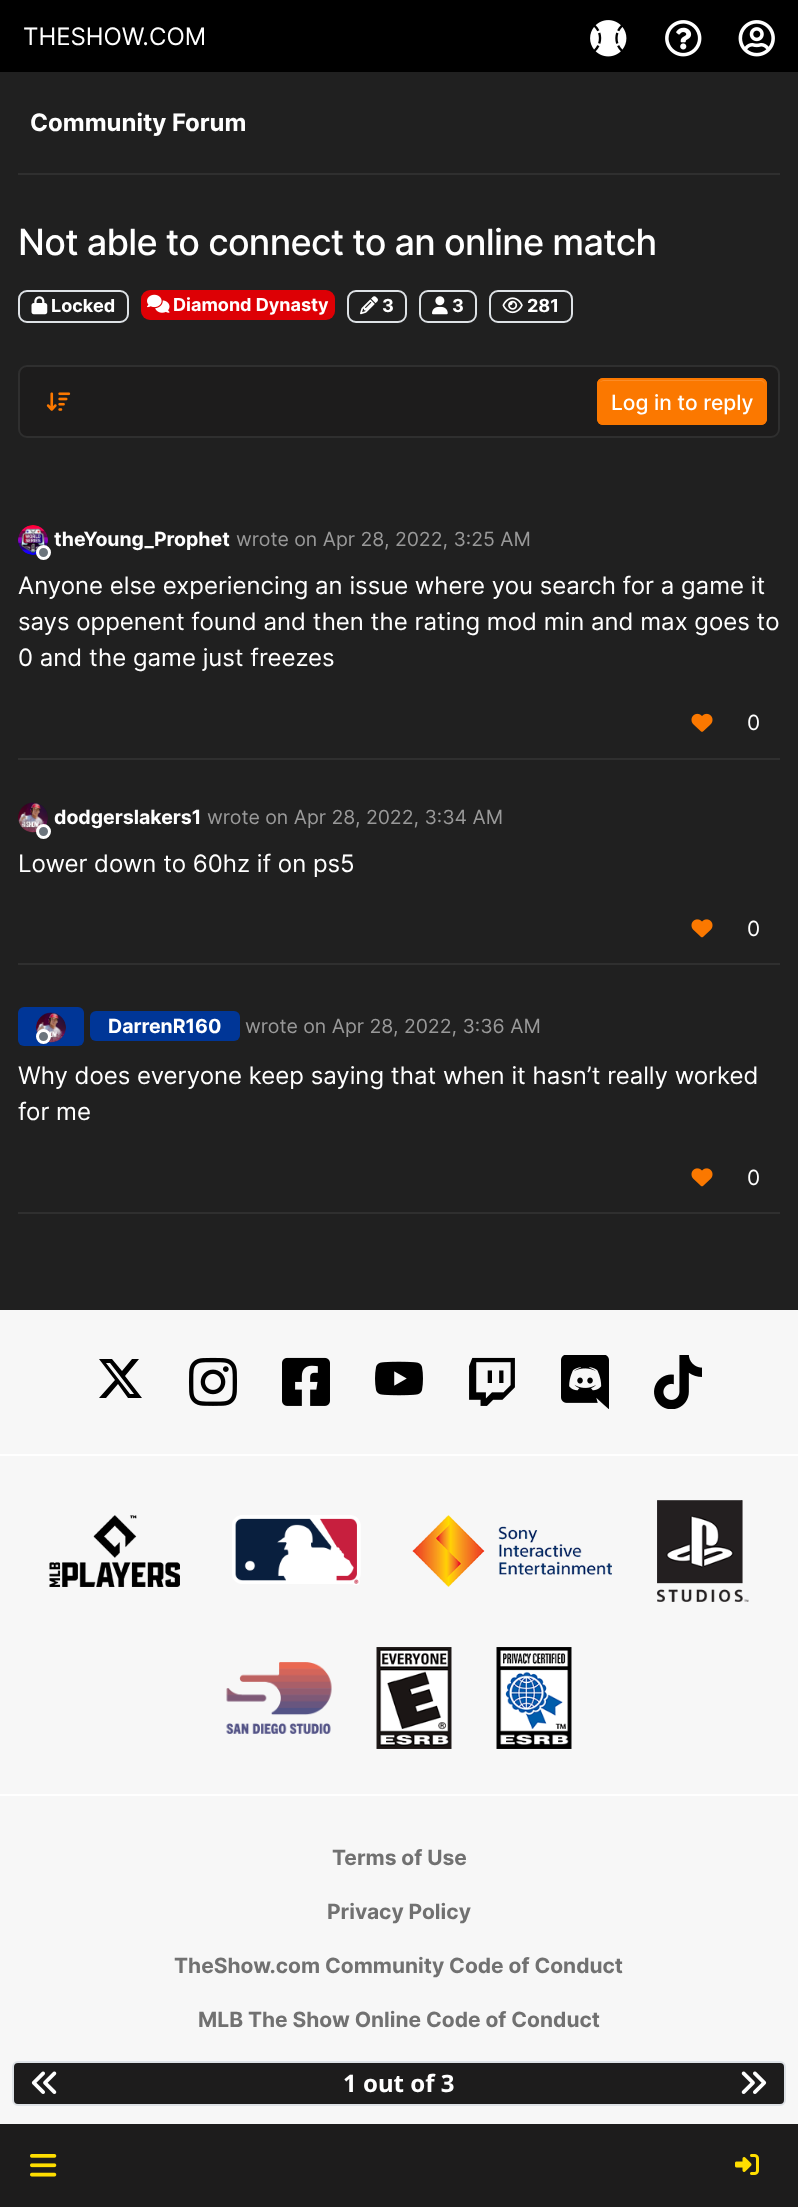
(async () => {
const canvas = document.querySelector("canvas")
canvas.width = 798
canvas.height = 2207
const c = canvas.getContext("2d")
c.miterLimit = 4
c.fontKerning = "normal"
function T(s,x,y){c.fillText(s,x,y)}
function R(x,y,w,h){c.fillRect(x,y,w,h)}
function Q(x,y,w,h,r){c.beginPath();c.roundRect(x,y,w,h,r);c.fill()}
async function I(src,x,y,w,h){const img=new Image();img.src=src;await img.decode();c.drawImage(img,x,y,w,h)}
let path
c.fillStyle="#202020"
R(0,0,798,2207)
c.fillStyle="#000"
R(0,0,798,72)
c.font="24px Inter"
c.fillStyle="#fff"
T("THESHOW.COM",23,45)
await I("1.png",590,20,37,37)
await I("2.png",665,20,37,37)
await I("3.png",738,20,37,37)
c.fillStyle="#2f2f2f"
R(18,173,762,2)
c.font="bold 24px Inter"
c.fillStyle="#fff"
T("Community Forum",30,131)
c.letterSpacing="-0.7px"
c.font="500 36px Inter"
T("Not able to connect to an online match",18,255)
c.beginPath()
c.roundRect(19,291,109,31,8)
c.strokeStyle="#dee2e6"
c.lineWidth=2
c.stroke()
await I("4.png",31,296,17,19)
c.letterSpacing="0px"
c.font="bold 18px Inter"
T("Locked",51,312)
c.fillStyle="#dd0005"
Q(141,290,194,30,9)
await I("5.png",147,294,23,19)
c.fillStyle="#fff"
T("Diamond Dynasty",173,311)
c.beginPath()
c.roundRect(348,291,58,31,8)
c.stroke()
await I("6.png",360,296,18,19)
T("3",382,312)
c.beginPath()
c.roundRect(420,291,56,31,8)
c.stroke()
await I("7.png",432,296,16,19)
T("3",452,312)
c.beginPath()
c.roundRect(490,291,82,31,8)
c.stroke()
await I("8.png",502,297,21,17)
T("281",527,312)
c.fillStyle="#1d1c1c"
c.beginPath()
c.roundRect(19,366,760,71,8)
c.fill()
c.strokeStyle="#2f2f2f"
c.stroke()
await I("9.png",46,392,25,19)
c.fillStyle="#fb7800"
Q(597,378,170,47,6)
c.fillStyle="#fc8c26"
path = new Path2D("M603 381h157c3 0 5 2 5 5v-1c0-3-2-5-5-5h-156c-2 0-3 1-4 2z")
c.fill(path)
c.beginPath()
c.roundRect(598,379,168,45,5)
c.strokeStyle="#fb7800"
c.stroke()
c.font="500 21px Inter"
c.fillStyle="#fff"
T("Log in to reply",611,410)
await I("10.png",18,525,30,30)
c.fillStyle="#6c757d"
c.beginPath()
c.arc(43.5,552.5,6,0,7)
c.fill()
c.strokeStyle="#fff"
c.lineWidth=3
c.stroke()
c.font="bold 19.5px Inter"
c.fillStyle="#fff"
T("theYoung_Prophet",54,546)
c.font="19.5px Inter"
c.fillStyle="#999"
T("wrote on Apr 28, 2022, 3:25 AM",236,546)
c.font="24px Inter"
c.fillStyle="#fff"
T("Anyone else experiencing an issue where you search for a game it",18,594)
T("says oppenent found and then the rating mod min and max goes to",18,630)
T("0 and the game just freezes",18,666)
c.fillStyle="#2f2f2f"
R(18,758,762,2)
await I("11.png",691,713,22,19)
c.font="21px Inter"
c.fillStyle="#fff"
T("0",747,730)
await I("12.png",18,802,30,31)
c.fillStyle="#6c757d"
c.beginPath()
c.arc(43.5,831.5,6,0,7)
c.fill()
c.stroke()
c.font="bold 19.5px Inter"
c.fillStyle="#fff"
T("dodgerslakers1",54,824)
c.font="19.5px Inter"
c.fillStyle="#999"
T("wrote on Apr 28, 2022, 3:34 AM",207,824)
c.font="24px Inter"
c.fillStyle="#fff"
T("Lower down to 60hz if on ps5",18,872)
c.fillStyle="#2f2f2f"
R(18,963,762,2)
await I("13.png",691,919,22,19)
c.font="21px Inter"
c.fillStyle="#fff"
T("0",747,936)
c.fillStyle="#003697"
Q(18,1007,66,39,6)
await I("14.png",36,1012,30,31)
c.fillStyle="#6c757d"
c.beginPath()
c.arc(43.5,1036.5,6,0,7)
c.fill()
c.stroke()
c.fillStyle="#003697"
Q(90,1011,150,30,6)
c.font="bold 19.5px Inter"
c.fillStyle="#fff"
T("DarrenR160",108,1033)
c.font="19.5px Inter"
c.fillStyle="#999"
T("wrote on Apr 28, 2022, 3:36 AM",245,1033)
c.font="24px Inter"
c.fillStyle="#fff"
T("Why does everyone keep saying that when it hasn’t really worked",18,1084)
T("for me",18,1120)
c.fillStyle="#2f2f2f"
R(18,1212,762,2)
await I("13.png",691,1168,22,19)
c.font="21px Inter"
c.fillStyle="#fff"
T("0",747,1185)
c.fillStyle="#f7f7f7"
R(0,1310,798,814)
c.fillStyle="#fff"
R(0,1454,798,2)
c.fillStyle="#000"
path = new Path2D("M132 1359h7l-14 17l17 22h-14l-10-14l-12 14h-7l16-18l-16-21h13l10 12zm-2 35h4l-24-31h-4z")
c.fill(path)
await I("15.png",189,1357,48,49)
await I("16.png",282,1357,48,49)
await I("17.png",375,1361,48,35)
await I("18.png",469,1357,46,49)
await I("19.png",561,1355,48,54)
await I("20.png",654,1355,48,54)
c.fillStyle="#fff"
R(0,1794,798,2)
await I("21.png",49,1515,131,72)
await I("22.png",232,1515,129,70)
await I("23.png",412,1515,200,72)
await I("24.png",657,1500,92,102)
await I("25.png",226,1662,106,72)
await I("26.png",376,1647,76,102)
await I("27.png",496,1647,76,102)
c.font="bold 21px Inter"
c.fillStyle="#717171"
T("Terms of Use",332,1865)
T("Privacy Policy",327,1919)
T("TheShow.com Community Code of Conduct",174,1973)
T("MLB The Show Online Code of Conduct",198,2027)
c.fillStyle="#1d1c1c"
c.beginPath()
c.roundRect(13,2062,772,43,5)
c.fill()
c.strokeStyle="#dee2e6"
c.lineWidth=2
c.stroke()
await I("28.png",31,2071,26,23)
c.font="bold 24px Noto Sans"
c.fillStyle="#fff"
T("1 out of 3",343,2092)
await I("29.png",741,2071,26,23)
c.fillStyle="#1d1c1c"
R(0,2124,798,83)
await I("30.png",30,2154,27,23)
await I("31.png",735,2154,24,21)
})()
